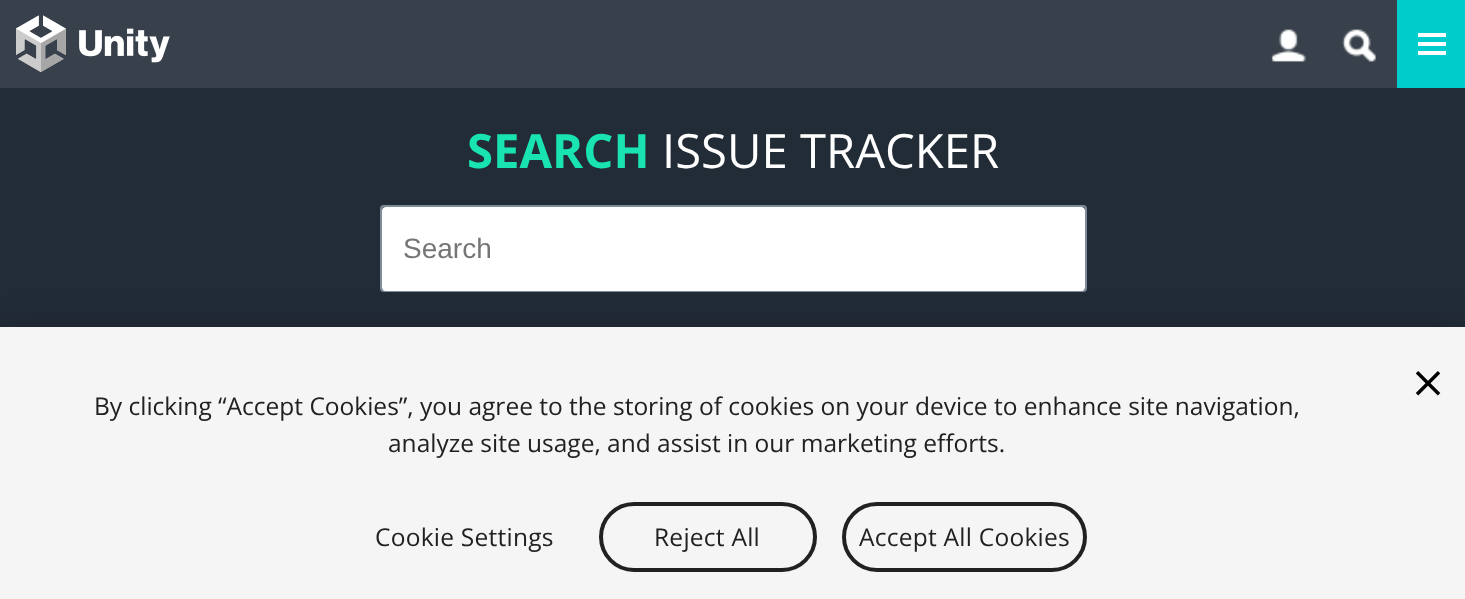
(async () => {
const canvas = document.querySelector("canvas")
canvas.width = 1465
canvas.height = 599
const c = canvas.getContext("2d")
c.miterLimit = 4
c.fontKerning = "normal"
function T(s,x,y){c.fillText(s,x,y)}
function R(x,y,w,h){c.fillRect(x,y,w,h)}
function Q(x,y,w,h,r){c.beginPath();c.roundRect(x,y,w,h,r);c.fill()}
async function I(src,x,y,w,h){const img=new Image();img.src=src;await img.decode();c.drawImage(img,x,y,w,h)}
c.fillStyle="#222c37"
R(0,0,1465,599)
c.fillStyle="#38414b"
R(0,0,1397,88)
await I("1.png",16,15,154,57)
await I("2.png",1271,29,35,33)
await I("3.png",1342,29,34,33)
c.fillStyle="#0cc"
R(1397,0,68,88)
c.fillStyle="#fff"
R(1418,42,28,4)
R(1418,33,28,4)
R(1418,51,28,4)
c.font="bold 47.25px Open Sans"
c.fillStyle="#19e3b1"
T("SEARCH",467,168)
c.font="47.25px Open Sans"
c.fillStyle="#fff"
T("ISSUE TRACKER",662,168)
c.beginPath()
c.roundRect(381,206,705,85,3)
c.strokeStyle="#7e8c9a"
c.lineWidth=2
c.stroke()
Q(382,207,703,84,4)
c.font="28px Liberation Sans"
c.fillStyle="#757575"
T("Search",403,258)
c.fillStyle="#00000033"
c.filter="blur(16px)"
c.beginPath()
c.rect(0,327,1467,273)
c.fill()
c.filter="none"
c.fillStyle="#f5f5f5"
R(0,327,1465,272)
await I("4.png",1415,371,26,25)
c.font="24.5px Open Sans"
c.fillStyle="#212121"
T("By clicking “Accept Cookies”, you agree to the storing of cookies on your device to enhance site navigation,",94,415)
T("analyze site usage, and assist in our marketing efforts.",388,452)
c.letterSpacing="0.25px"
T("Cookie Settings",375,546)
c.beginPath()
c.roundRect(601,504,214,66,33)
c.strokeStyle="#212121"
c.lineWidth=4
c.stroke()
T("Reject All",654,546)
c.beginPath()
c.roundRect(844,504,241,66,33)
c.stroke()
T("Accept All Cookies",859,546)
})()
